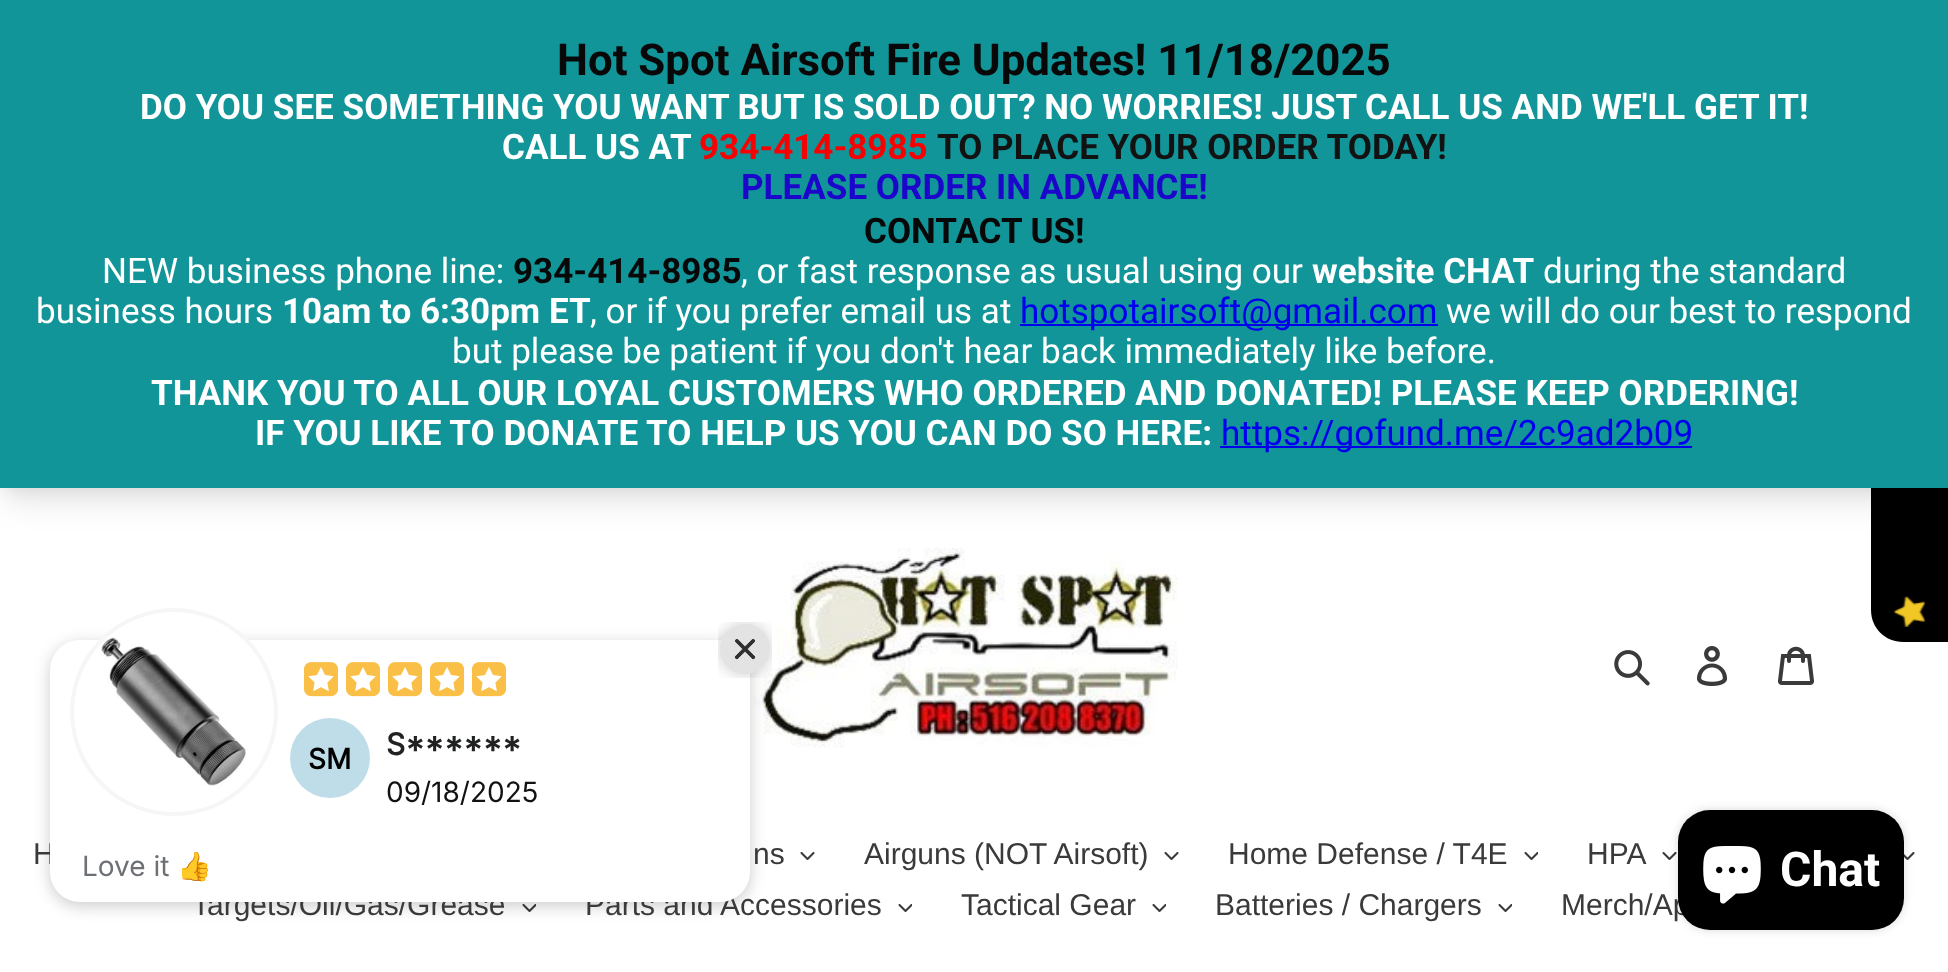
(async () => {
const canvas = document.querySelector("canvas")
canvas.width = 1948
canvas.height = 972
const c = canvas.getContext("2d")
c.miterLimit = 4
c.fontKerning = "normal"
function T(s,x,y){c.fillText(s,x,y)}
function R(x,y,w,h){c.fillRect(x,y,w,h)}
function Q(x,y,w,h,r){c.beginPath();c.roundRect(x,y,w,h,r);c.fill()}
async function I(src,x,y,w,h){const img=new Image();img.src=src;await img.decode();c.drawImage(img,x,y,w,h)}
let path
c.fillStyle="#fff"
R(0,0,1948,972)
c.fillStyle="#000"
path = new Path2D("M1871 610v-191c0-18 14-32 32-32h45v255h-45c-18 0-32-14-32-32z")
c.fill(path)
c.fillStyle="#0000000d"
c.filter="blur(6px)"
c.beginPath()
c.rect(4,12,1940,480)
c.fill()
c.filter="none"
c.fillStyle="#0000001a"
c.filter="blur(15px)"
c.beginPath()
c.rect(6,26,1936,476)
c.fill()
c.filter="none"
c.fillStyle="#129599"
R(0,0,1948,488)
c.font="bold 43.8px Roboto"
c.fillStyle="#080808"
T("Hot Spot Airsoft Fire Updates! 11/18/2025",557,75)
c.font="bold 35.05px Roboto"
c.fillStyle="#fff"
T("DO YOU SEE SOMETHING YOU WANT BUT IS SOLD OUT? NO WORRIES! JUST CALL US AND WE'LL GET IT!",140,119)
T("CALL US AT",502,159)
c.fillStyle="#f90101"
T("934-414-8985",699,159)
c.fillStyle="#121212"
T("TO PLACE YOUR ORDER TODAY!",937,159)
c.fillStyle="#1d06cb"
T("PLEASE ORDER IN ADVANCE!",741,199)
c.fillStyle="#080808"
T("CONTACT US!",864,243)
c.font="35.05px Roboto"
c.fillStyle="#fff"
T("NEW business phone line:",102,283)
c.font="bold 35.05px Roboto"
c.fillStyle="#080808"
T("934-414-8985",513,283)
c.font="35.05px Roboto"
c.fillStyle="#fff"
T(", or fast response as usual using our",741,283)
c.font="bold 35.05px Roboto"
T("website CHAT",1312,283)
c.font="35.05px Roboto"
T("during the standard",1543,283)
T("business hours",36,323)
c.font="bold 35.05px Roboto"
T("10am to 6:30pm ET",282,323)
c.font="35.05px Roboto"
T(", or if you prefer email us at",590,323)
c.fillStyle="#00e"
R(1020,324,418,2)
T("hotspotairsoft@gmail.com",1020,323)
c.fillStyle="#fff"
T("we will do our best to respond",1446,323)
T("but please be patient if you don't hear back immediately like before.",452,363)
c.font="bold 35.05px Roboto"
T("THANK YOU TO ALL OUR LOYAL CUSTOMERS WHO ORDERED AND DONATED! PLEASE KEEP ORDERING!",151,405)
T("IF YOU LIKE TO DONATE TO HELP US YOU CAN DO SO HERE:",255,445)
c.fillStyle="#00e"
R(1220,446,472,2)
c.font="35.05px Roboto"
T("https://gofund.me/2c9ad2b09",1221,445)
await I("1.png",1893,596,32,31)
await I("6.png",754,548,424,200)
await I("11.png",522,904,14,8)
c.fillStyle="#00000033"
c.filter="blur(8px)"
c.beginPath()
c.roundRect(50,644,700,262,30)
c.fill()
c.filter="none"
c.font="30px Liberation Sans"
c.fillStyle="#3a3a3a"
T("H",33,864)
T("Targets/Oil/Gas/Grease",192,915)
T("Parts and Accessories",585,915)
c.fillStyle="#fff"
Q(50,640,700,262,30)
c.fillStyle="#f6f6f6"
c.beginPath()
c.arc(174,712,104,0,7)
c.fill()
await I("2.png",74,612,200,200)
await I("3.png",718,622,54,56)
await I("4.png",304,662,35,35)
await I("5.png",308,667,26,25)
await I("4.png",346,662,35,35)
await I("5.png",350,667,26,25)
await I("4.png",388,662,35,35)
await I("5.png",392,667,26,25)
await I("4.png",430,662,35,35)
await I("5.png",434,667,26,25)
await I("4.png",472,662,35,35)
await I("5.png",476,667,26,25)
c.fillStyle="#bfdde8"
c.beginPath()
c.arc(330,758,40,0,7)
c.fill()
c.font="bold 28px Inter"
c.fillStyle="#000"
T("SM",308,769)
c.font="bold 30px Inter"
c.fillStyle="#202223"
T("S******",386,755)
c.font="28px Inter"
c.fillStyle="#121212"
T("09/18/2025",386,802)
c.fillStyle="#6d7175"
T("Love it",82,876)
c.font="28px Noto Color Emoji"
T("👍",177,876)
await I("7.png",1614,650,36,36)
await I("8.png",1697,646,31,40)
await I("9.png",1778,646,36,39)
c.font="30px Liberation Sans"
c.fillStyle="#3a3a3a"
T("ns",753,864)
await I("10.png",800,852,15,8)
T("Airguns (NOT Airsoft)",864,864)
await I("10.png",1164,852,15,8)
T("Home Defense / T4E",1228,864)
await I("11.png",1524,852,14,8)
T("HPA",1587,864)
await I("10.png",1662,852,15,8)
await I("12.png",1904,852,11,8)
await I("11.png",898,904,14,8)
T("Tactical Gear",961,915)
await I("11.png",1152,904,14,8)
T("Batteries / Chargers",1215,915)
await I("11.png",1498,904,14,8)
T("Merch/Ap",1561,915)
c.fillStyle="#00000026"
c.filter="blur(5px)"
c.beginPath()
c.roundRect(1678,810,226,120,32)
c.fill()
c.filter="none"
c.fillStyle="#000"
Q(1678,810,226,120,32)
await I("13.png",1703,846,58,58)
c.font="bold 48px Roboto"
c.fillStyle="#fff"
T("Chat",1780,886)
})()
